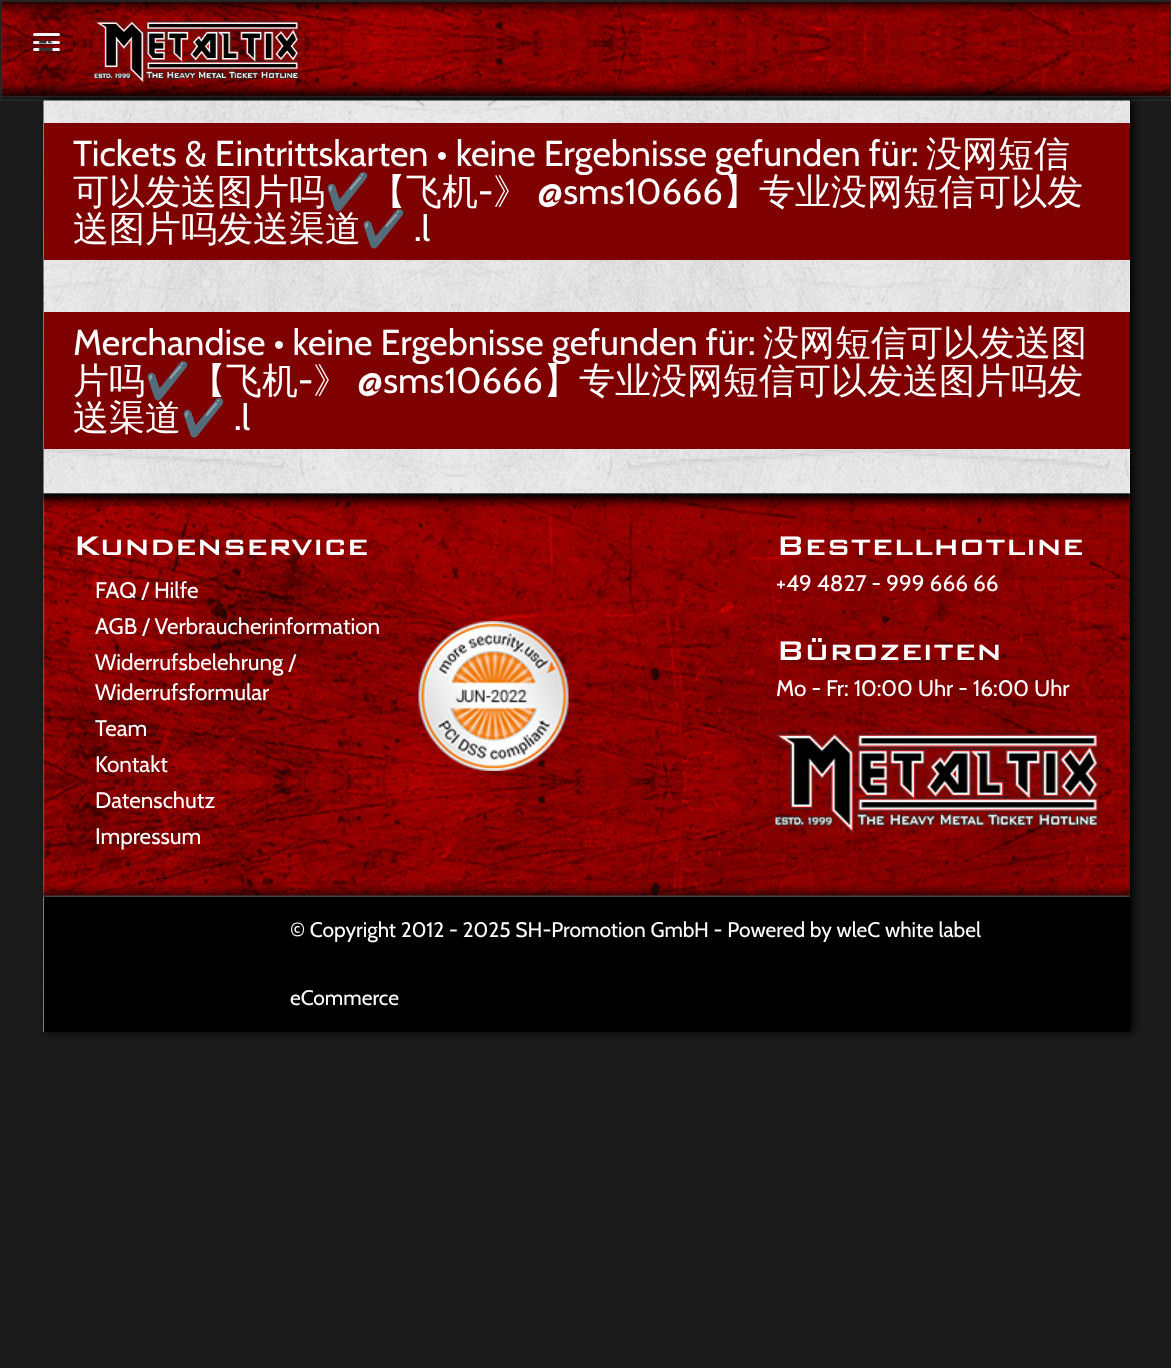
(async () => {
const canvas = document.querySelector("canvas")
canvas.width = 1171
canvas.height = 1368
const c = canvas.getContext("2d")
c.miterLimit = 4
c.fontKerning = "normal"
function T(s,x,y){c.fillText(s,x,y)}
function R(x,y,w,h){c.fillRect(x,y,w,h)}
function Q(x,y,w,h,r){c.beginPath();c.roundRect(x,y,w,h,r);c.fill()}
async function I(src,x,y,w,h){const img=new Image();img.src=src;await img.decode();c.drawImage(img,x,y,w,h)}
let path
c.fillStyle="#1b1b1b"
R(0,0,1171,1368)
await I("1.png",2,2,1168,97)
c.strokeStyle="#252525"
c.lineWidth=2
c.strokeRect(1,1,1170,99)
c.fillStyle="#00000040"
path = new Path2D("M33.5 35.5l-.5 1.5c.5 2 5 1 5.5 1h16c.5 0 5 1 5.5-1l-.5-1.5l-1 .5h-24z")
c.fill(path)
c.fillStyle="#f5f5f5"
Q(33,33,27,3,1.5)
c.fillStyle="#00000040"
path = new Path2D("M33 42.5c-1.5 3.5 5.5 2.5 5.5 2.5h16c0 0 7 1 5.5-2.5c-.5 .5-1 1-1.5 1h-24c-.5 0-1-.5-1.5-1z")
c.fill(path)
c.fillStyle="#f5f5f5"
Q(33,41,27,3,1.5)
await I("2.png",38,40,15,4)
c.fillStyle="#00000040"
path = new Path2D("M33.5 50.5l-.5 1.5c.5 2 5 1 5.5 1h16c.5 0 5 1 5.5-1l-.5-1.5l-1 .5h-24z")
c.fill(path)
c.fillStyle="#f5f5f5"
Q(33,48,27,3,1.5)
await I("3.png",38,48,15,3)
await I("4.png",94,21,205,63)
c.fillStyle="#000"
c.filter="blur(4px)"
c.beginPath()
c.rect(47,101,1086,931)
c.fill()
c.filter="none"
c.fillStyle="#eee"
R(1129,101,1,393)
await I("5.png",43,100,1087,932)
c.fillStyle="#7f0000"
R(44,123,1086,137)
c.font="36px Cabin"
c.fillStyle="#fff"
T("Tickets & Eintrittskarten • keine Ergebnisse gefunden für:",73,166)
c.font="500 36px WenQuanYi Zen Hei"
T("没网短信",926,166)
T("可以发送图片吗",73,204)
c.font="36px Noto Color Emoji"
T("✔️",325,204)
c.font="500 36px WenQuanYi Zen Hei"
T("【飞机",370,204)
c.font="36px Cabin"
T("-",478,204)
c.font="500 36px WenQuanYi Zen Hei"
T("》",493,204)
c.font="36px Cabin"
T("@sms10666",537,204)
c.font="500 36px WenQuanYi Zen Hei"
T("】专业没网短信可以发",723,204)
T("送图片吗发送渠道",73,241)
c.font="36px Noto Color Emoji"
T("✔️",361,241)
c.font="36px Cabin"
T(".l",414,241)
c.fillStyle="#7f0000"
R(44,312,1086,137)
c.fillStyle="#fff"
T("Merchandise • keine Ergebnisse gefunden für:",73,355)
c.font="500 36px WenQuanYi Zen Hei"
T("没网短信可以发送图",763,355)
T("片吗",73,393)
c.font="36px Noto Color Emoji"
T("✔️",145,393)
c.font="500 36px WenQuanYi Zen Hei"
T("【飞机",190,393)
c.font="36px Cabin"
T("-",298,393)
c.font="500 36px WenQuanYi Zen Hei"
T("》",313,393)
c.font="36px Cabin"
T("@sms10666",357,393)
c.font="500 36px WenQuanYi Zen Hei"
T("】专业没网短信可以发送图片吗发",543,393)
T("送渠道",73,430)
c.font="36px Noto Color Emoji"
T("✔️",181,430)
c.font="36px Cabin"
T(".l",234,430)
c.fillStyle="#7f0000"
R(1129,494,1,403)
await I("6.png",43,493,1087,404)
c.font="500 36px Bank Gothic"
c.fillStyle="#fff"
T("Kundenservice",73,555)
c.font="22.5px Cabin"
T("FAQ / Hilfe",95,598)
T("AGB / Verbraucherinformation",95,634)
T("Widerrufsbelehrung /",95,670)
T("Widerrufsformular",95,700)
T("Team",95,736)
T("Kontakt",95,772)
T("Datenschutz",95,808)
T("Impressum",95,844)
c.font="500 36px Bank Gothic"
T("Bestellhotline",776,555)
c.font="22.5px Cabin"
T("+49 4827 - 999 666 66",776,591)
await I("7.png",418,621,151,150)
await I("8.png",775,733,323,101)
c.font="500 36px Bank Gothic"
T("Bürozeiten",776,660)
c.font="22.5px Cabin"
T("Mo - Fr: 10:00 Uhr - 16:00 Uhr",776,696)
c.fillStyle="#000"
R(44,897,1086,135)
c.font="21px Cabin"
c.fillStyle="#fff"
T("© Copyright 2012 - 2025 SH-Promotion GmbH - Powered by wleC white label",290,937)
T("eCommerce",290,1005)
})()
